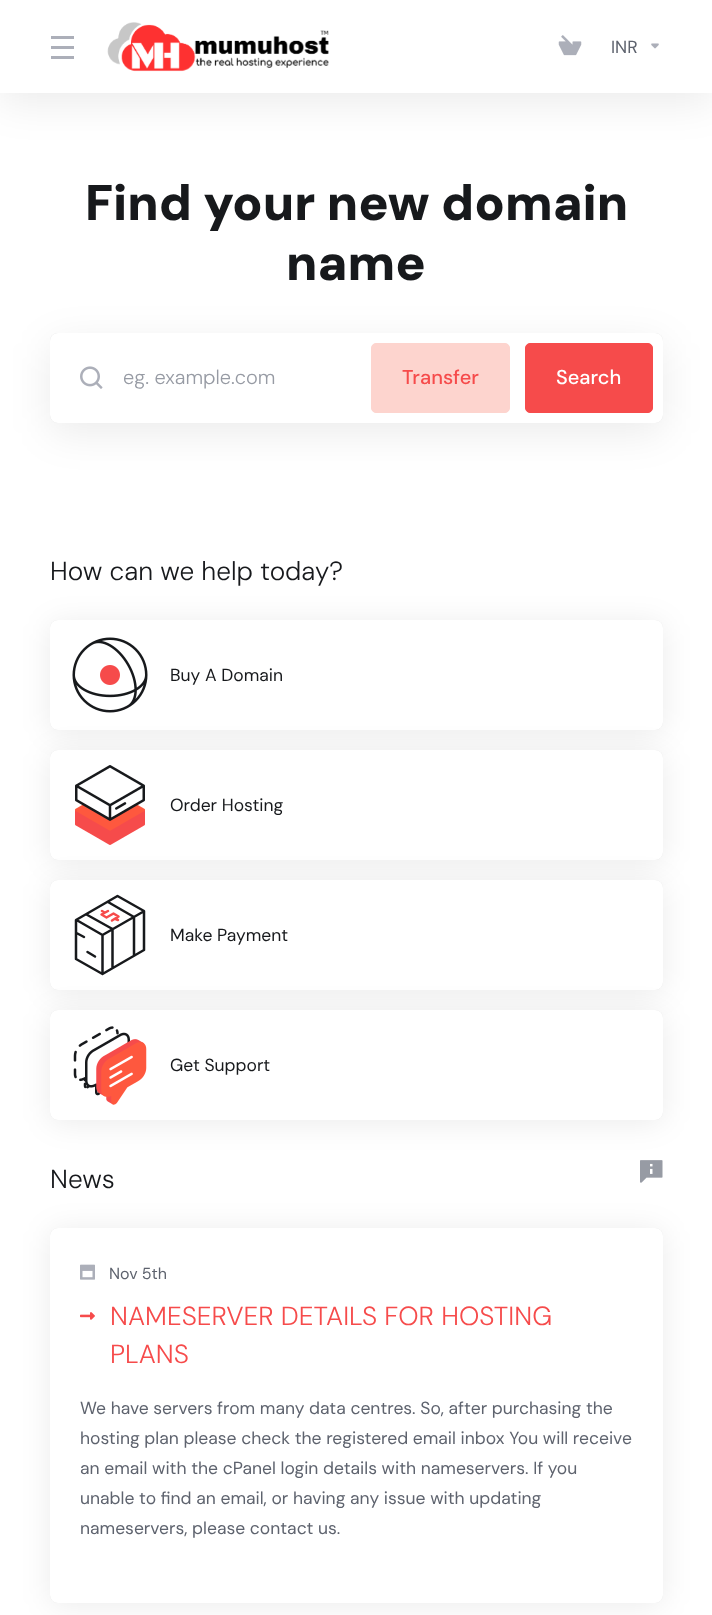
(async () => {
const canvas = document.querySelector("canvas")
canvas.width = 712
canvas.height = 1615
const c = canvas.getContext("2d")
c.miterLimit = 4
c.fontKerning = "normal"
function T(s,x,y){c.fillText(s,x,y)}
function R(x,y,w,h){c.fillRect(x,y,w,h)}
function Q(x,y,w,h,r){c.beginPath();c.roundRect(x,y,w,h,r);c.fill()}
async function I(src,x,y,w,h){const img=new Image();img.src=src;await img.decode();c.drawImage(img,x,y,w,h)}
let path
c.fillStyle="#fff"
R(0,0,712,1615)
c.fillStyle="#00000014"
c.filter="blur(20px)"
c.beginPath()
c.rect(0,10,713,93)
c.fill()
c.filter="none"
c.fillStyle="#fff"
R(0,0,712,93)
c.fillStyle="#acafb9"
R(51,36,23,3)
R(51,46,23,3)
R(51,56,23,3)
await I("1.png",107,22,222,50)
await I("2.png",558,35,24,21)
c.font="17.5px DM Sans"
c.fillStyle="#5e636e"
T("INR",611,53)
await I("3.png",651,43,8,6)
c.font="900 50px DM Sans"
c.fillStyle="#17191c"
T("Find your new domain",85,220)
T("name",286,280)
c.fillStyle="#00000014"
c.filter="blur(20px)"
c.beginPath()
c.roundRect(50,343,613,90,8)
c.fill()
c.filter="none"
c.fillStyle="#0000001f"
c.filter="blur(0.5px)"
c.beginPath()
c.roundRect(50,333,613,90,8)
c.fill()
c.filter="none"
c.fillStyle="#fff"
Q(50,333,613,90,8)
await I("4.png",80,366,23,23)
c.font="300 20px DM Sans"
c.fillStyle="#979ba4"
T("eg. example.com",123,384)
c.fillStyle="#fdd4ce"
c.beginPath()
c.roundRect(371.5,343.5,138,69,4.5)
c.fill()
c.strokeStyle="#fdd4ce"
c.stroke()
c.font="500 20px DM Sans"
c.fillStyle="#f64b4b"
T("Transfer",402,384)
c.beginPath()
c.roundRect(525.5,343.5,127,69,4.5)
c.fill()
c.strokeStyle="#f64b4b"
c.stroke()
c.fillStyle="#fff"
T("Search",556,384)
c.font="300 26.25px DM Sans"
c.fillStyle="#17191c"
T("How can we help today?",50,580)
c.fillStyle="#00000014"
c.filter="blur(15px)"
c.beginPath()
c.roundRect(50,623,613,110,8)
c.fill()
c.filter="none"
c.fillStyle="#0000001a"
c.filter="blur(0.5px)"
c.beginPath()
c.roundRect(50,620,613,110,8)
c.fill()
c.filter="none"
c.fillStyle="#fff"
Q(50,620,613,110,8)
await I("5.png",72,637,76,76)
c.font="17.5px DM Sans"
c.fillStyle="#17191c"
T("Buy A Domain",170,681)
c.fillStyle="#00000014"
c.filter="blur(15px)"
c.beginPath()
c.roundRect(50,753,613,110,8)
c.fill()
c.filter="none"
c.fillStyle="#0000001a"
c.filter="blur(0.5px)"
c.beginPath()
c.roundRect(50,750,613,110,8)
c.fill()
c.filter="none"
c.fillStyle="#fff"
Q(50,750,613,110,8)
await I("6.png",75,765,70,80)
c.fillStyle="#17191c"
T("Order Hosting",170,811)
c.fillStyle="#00000014"
c.filter="blur(15px)"
c.beginPath()
c.roundRect(50,883,613,110,8)
c.fill()
c.filter="none"
c.fillStyle="#0000001a"
c.filter="blur(0.5px)"
c.beginPath()
c.roundRect(50,880,613,110,8)
c.fill()
c.filter="none"
c.fillStyle="#fff"
Q(50,880,613,110,8)
path = new Path2D("M108 911l-6.5 3.5l5 3l7-4l5 3l-6.5 4m-10-9.5l2.5 1.5m11 6.5l2.5 1")
c.lineWidth=2.5
c.lineCap="round"
c.lineJoin="round"
c.stroke(path)
path = new Path2D("M87.5 952l7.5 4.5m-8.5-42l26 14.5v38.5m-4.5-65.5l26 15v38m-57.5-22l7.5 4m-7.5-17l26 15l41-23.5m-41 24v37m-26.5-52.5v39l26.5 15l41.5-24v-39l-26.5-15z")
c.strokeStyle="#17191c"
c.stroke(path)
c.fillStyle="#17191c"
T("Make Payment",170,941)
await I("8.png",640,1160,23,23)
c.fillStyle="#00000014"
c.filter="blur(15px)"
c.beginPath()
c.roundRect(50,1013,613,110,8)
c.fill()
c.filter="none"
c.fillStyle="#0000001a"
c.filter="blur(0.5px)"
c.beginPath()
c.roundRect(50,1010,613,110,8)
c.fill()
c.filter="none"
c.fillStyle="#fff"
Q(50,1010,613,110,8)
await I("7.png",73,1026,74,79)
c.fillStyle="#17191c"
T("Get Support",170,1071)
c.fillStyle="#00000014"
c.filter="blur(15px)"
c.beginPath()
c.roundRect(50,1230,613,375,8)
c.fill()
c.filter="none"
c.font="300 26.25px DM Sans"
c.fillStyle="#17191c"
T("News",50,1188)
c.fillStyle="#0000001a"
c.filter="blur(0.5px)"
c.beginPath()
c.roundRect(50,1228,613,375,8)
c.fill()
c.filter="none"
c.fillStyle="#fff"
Q(50,1228,613,375,8)
await I("9.png",80,1264,15,16)
c.font="16px DM Sans"
c.fillStyle="#5e636e"
T("Nov 5th",109,1279)
await I("10.png",80,1312,15,8)
c.font="300 26.25px DM Sans"
c.fillStyle="#f64b4b"
T("NAMESERVER DETAILS FOR HOSTING",110,1325)
T("PLANS",110,1363)
c.font="17.5px DM Sans"
c.fillStyle="#5e636e"
T("We have servers from many data centres. So, after purchasing the",80,1414)
T("hosting plan please check the registered email inbox You will receive",80,1444)
T("an email with the cPanel login details with nameservers. If you",80,1474)
T("unable to find an email, or having any issue with updating",80,1504)
T("nameservers, please contact us.",80,1534)
})()
